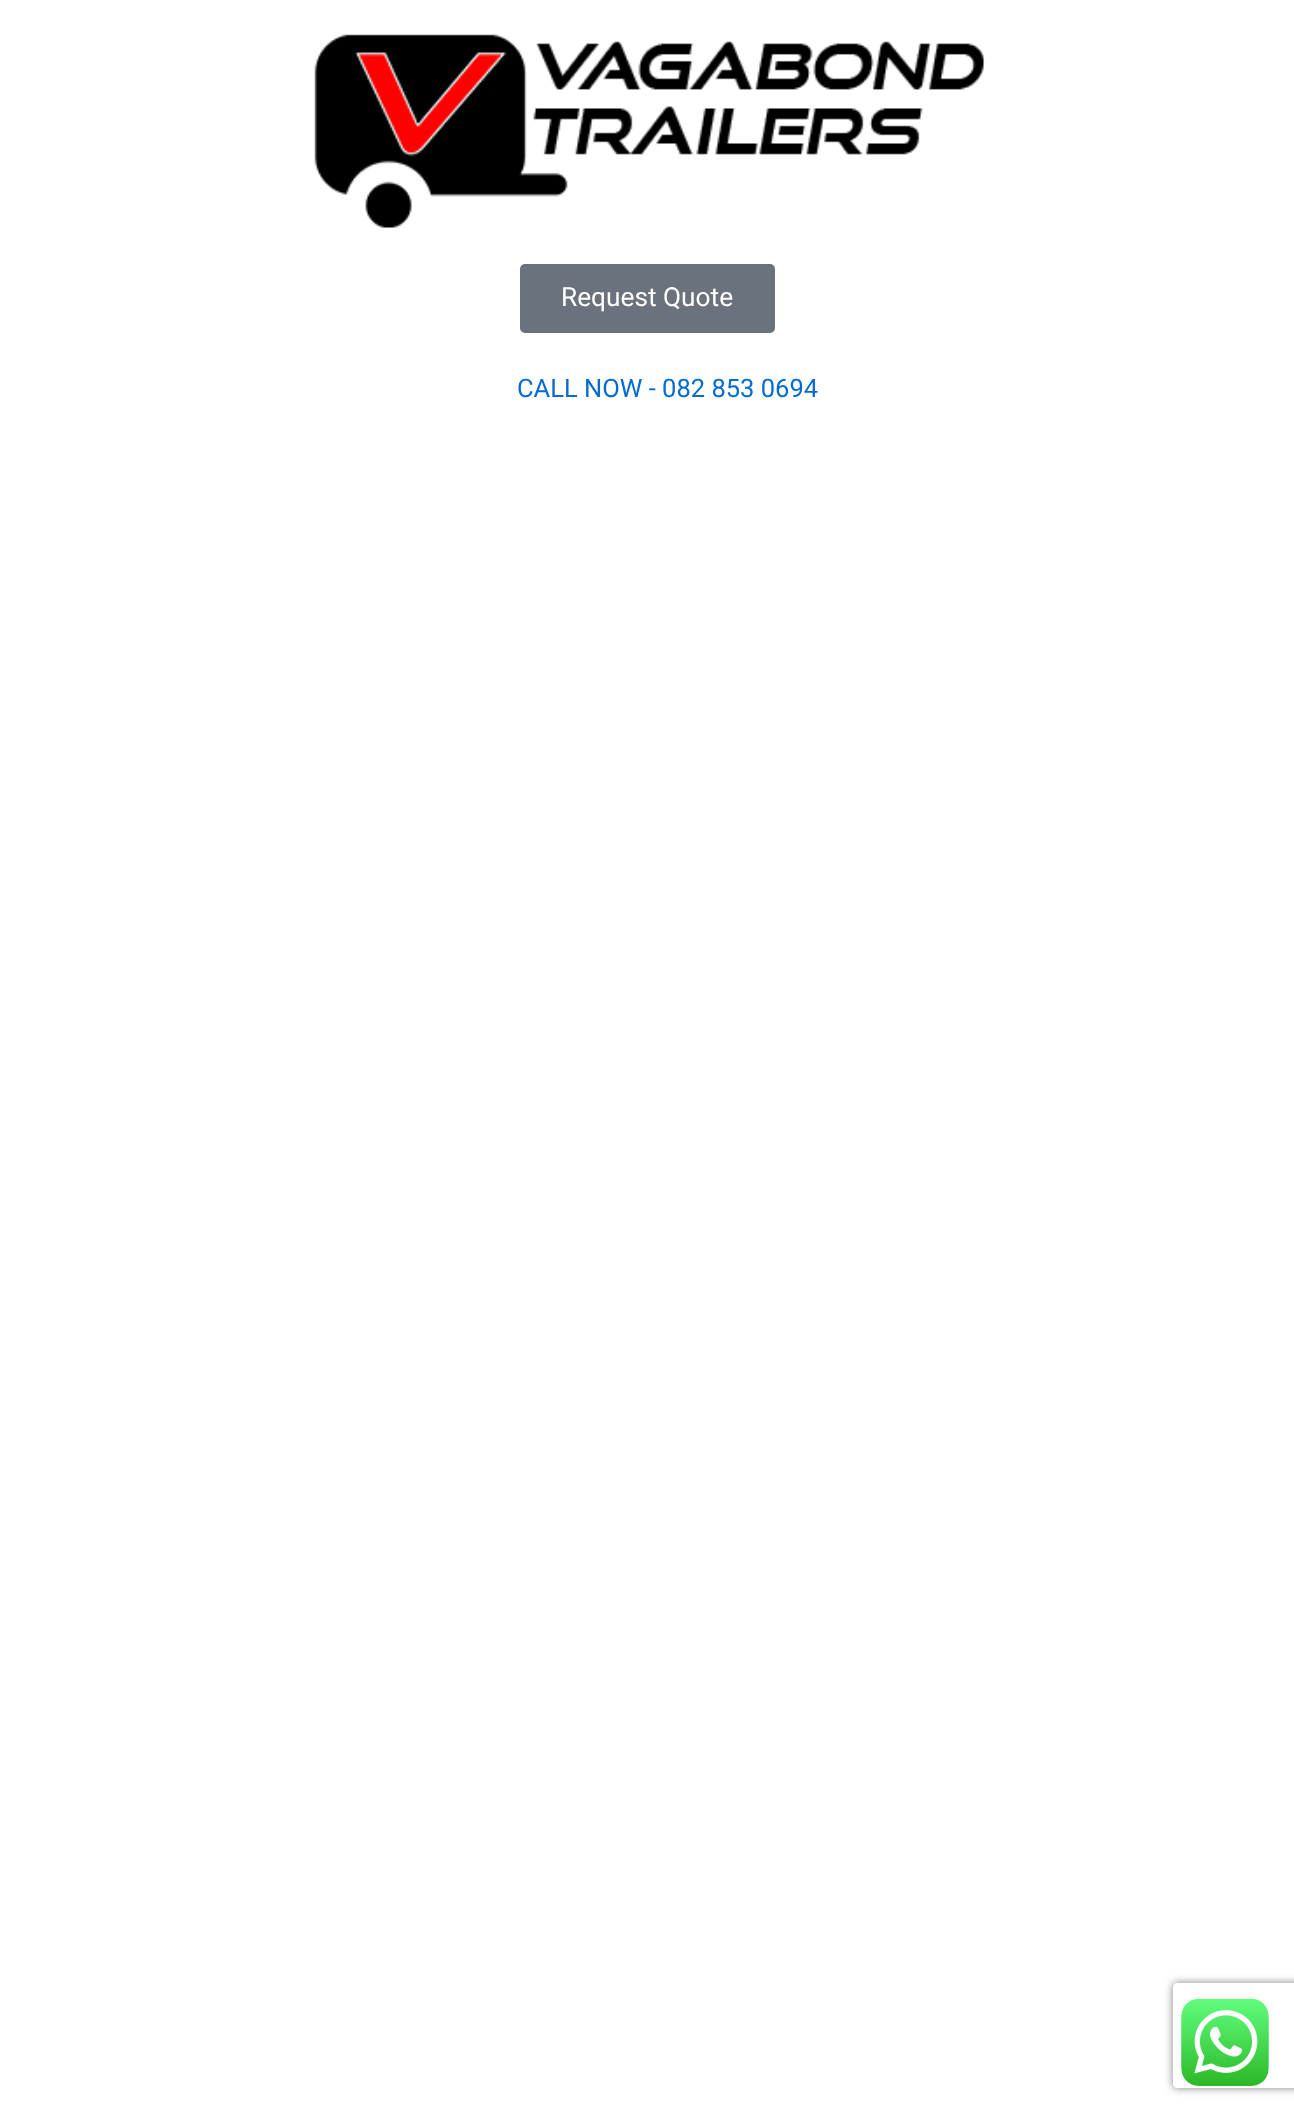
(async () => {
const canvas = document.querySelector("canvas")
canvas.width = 1294
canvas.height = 2111
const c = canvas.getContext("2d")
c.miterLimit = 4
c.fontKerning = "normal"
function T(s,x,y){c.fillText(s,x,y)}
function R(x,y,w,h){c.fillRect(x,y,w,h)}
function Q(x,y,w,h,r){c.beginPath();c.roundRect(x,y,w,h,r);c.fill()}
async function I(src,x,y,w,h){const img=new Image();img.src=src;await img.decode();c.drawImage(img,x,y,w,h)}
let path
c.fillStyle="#fff"
R(0,0,1294,2111)
await I("1.png",314,34,671,194)
c.fillStyle="#69727d"
Q(520,264,255,69,5)
c.font="26.25px Roboto"
c.fillStyle="#fff"
T("Request Quote",561,306)
c.font="25.5px Roboto"
c.fillStyle="#046bd2"
T("CALL NOW - 082 853 0694",517,397)
c.save()
path = new Path2D("M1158 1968h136v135h-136zm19 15h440c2 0 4 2 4 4v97c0 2-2 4-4 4h-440c-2 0-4-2-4-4v-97c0-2 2-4 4-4z")
c.clip(path,"evenodd")
c.fillStyle="#808080"
c.filter="blur(4.5px)"
c.beginPath()
c.roundRect(1173,1983,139,105,4)
c.fill()
c.filter="none"
c.restore()
await I("2.png",1181,1999,88,87)
})()
